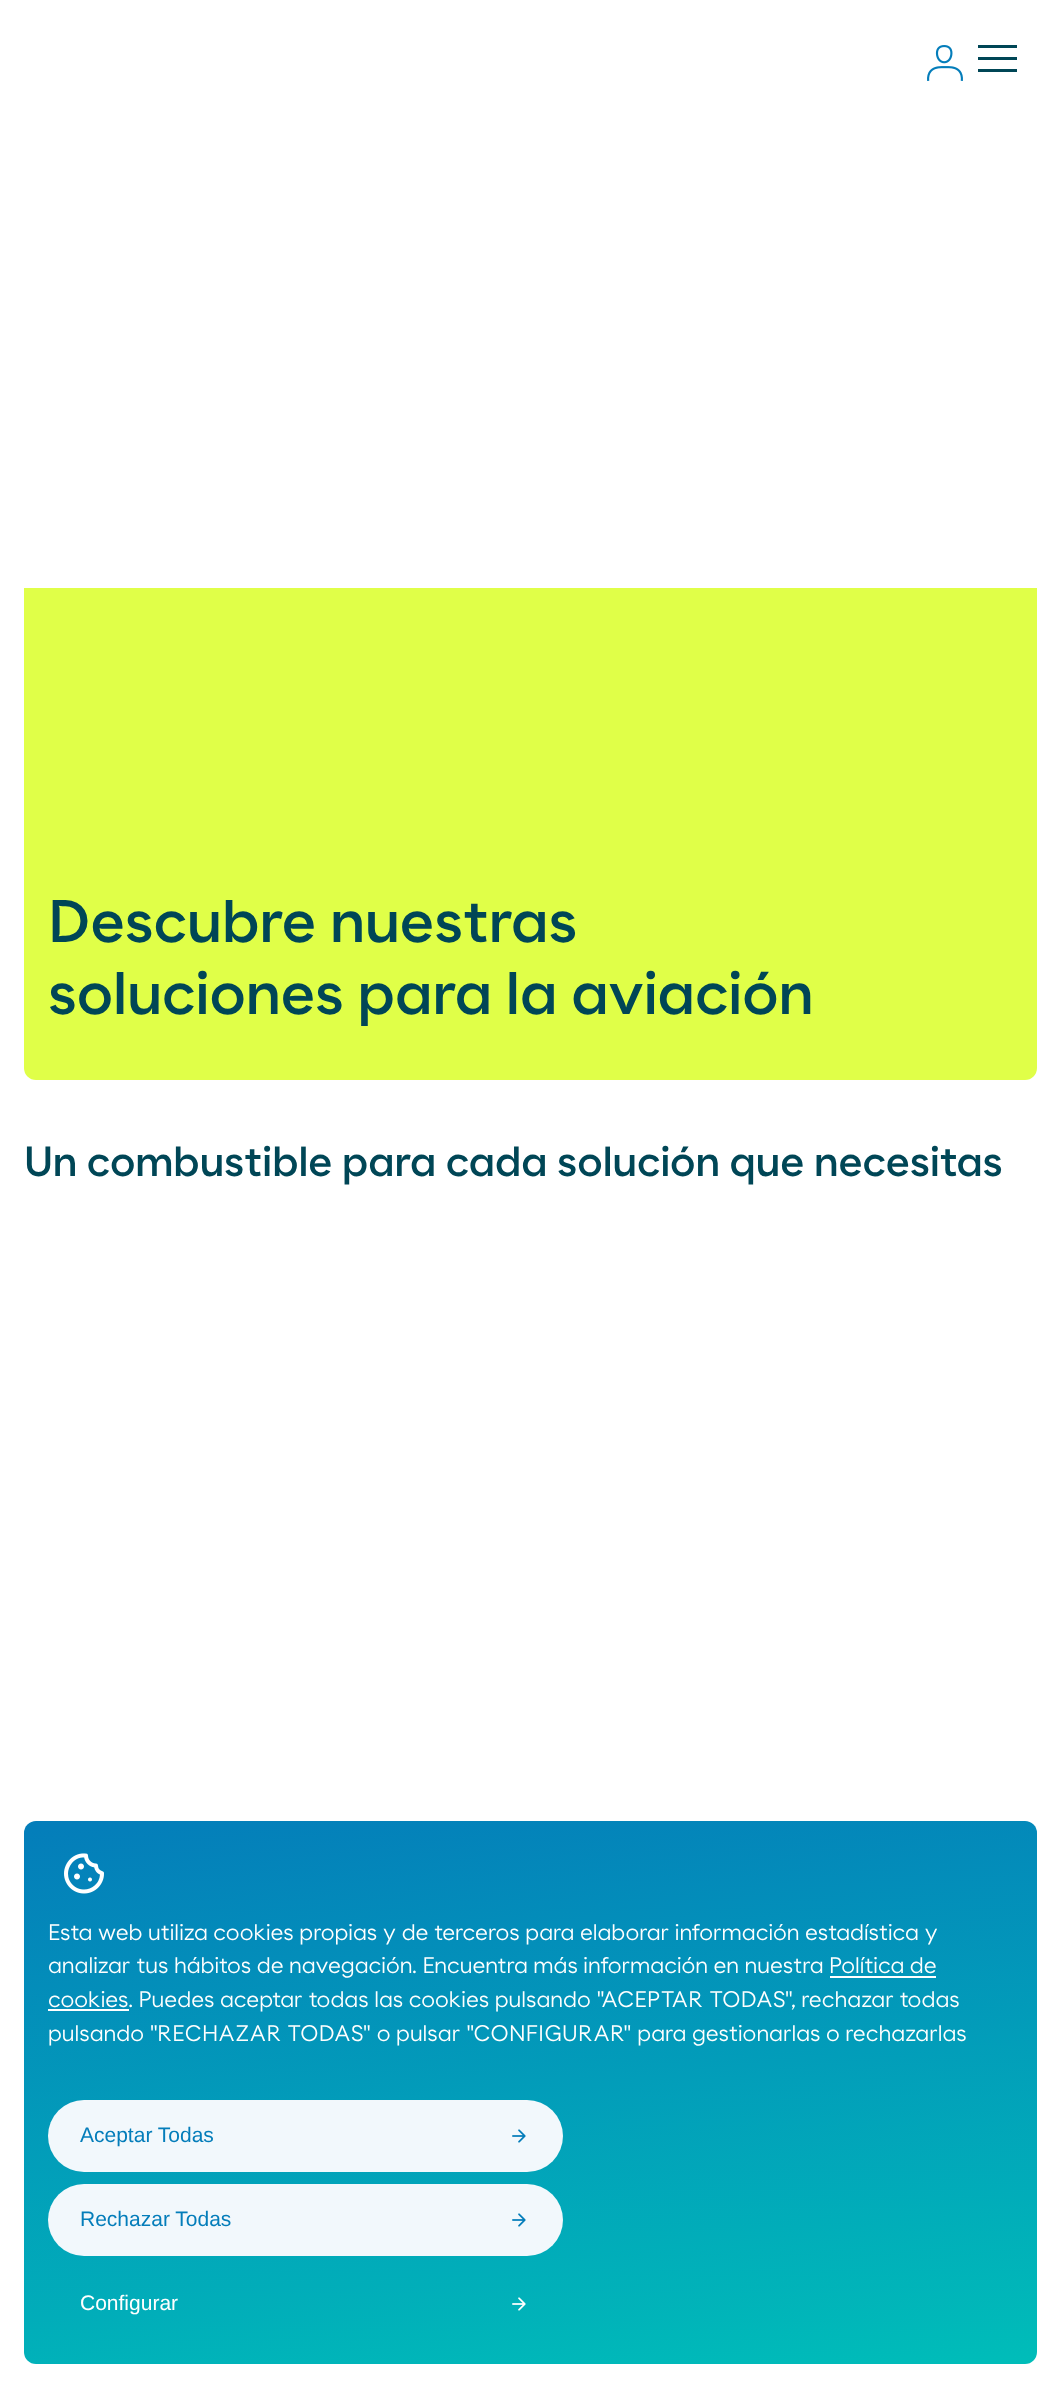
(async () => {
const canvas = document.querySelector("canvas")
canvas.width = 1060
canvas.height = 2388
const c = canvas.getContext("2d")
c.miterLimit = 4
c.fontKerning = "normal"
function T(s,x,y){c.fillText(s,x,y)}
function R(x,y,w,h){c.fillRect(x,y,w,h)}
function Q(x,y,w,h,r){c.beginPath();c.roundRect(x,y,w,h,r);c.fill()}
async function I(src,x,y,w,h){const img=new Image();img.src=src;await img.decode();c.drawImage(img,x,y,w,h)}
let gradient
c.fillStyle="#fff"
R(0,0,1060,2388)
await I("1.png",927,45,36,36)
c.fillStyle="#004656"
R(978,57,39,3)
R(978,45,39,3)
R(978,69,39,3)
c.fillStyle="#e0ff48"
c.beginPath()
c.roundRect(24,588,1013,492,[0,0,12,12])
c.fill()
c.font="60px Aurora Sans"
c.fillStyle="#004656"
T("Descubre nuestras",48,942)
T("soluciones para la aviación",48,1014)
c.font="42px Aurora Sans"
T("Un combustible para cada solución que necesitas",24,1176)
gradient = c.createLinearGradient(571,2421,490,1764)
gradient.addColorStop(0,"#00bdb9")
gradient.addColorStop(1,"#047dba")
c.fillStyle = gradient
Q(24,1821,1013,543,12)
await I("2.png",64,1853,40,41)
c.font="300 22.5px Aurora Sans"
c.fillStyle="#fff"
T("Esta web utiliza cookies propias y de terceros para elaborar información estadística y",48,1940)
T("analizar tus hábitos de navegación. Encuentra más información en nuestra Política de",48,1973)
R(48,2009,81,2)
T("cookies. Puedes aceptar todas las cookies pulsando \"ACEPTAR TODAS\", rechazar todas",48,2007)
R(830,1976,106,2)
T("pulsando \"RECHAZAR TODAS\" o pulsar \"CONFIGURAR\" para gestionarlas o rechazarlas",48,2041)
c.fillStyle="#f2f8fc"
Q(48,2100,515,72,36)
c.font="21px Liberation Sans"
c.fillStyle="#047dba"
T("Aceptar Todas",80,2142)
await I("3.png",512,2129,14,14)
c.fillStyle="#f2f8fc"
Q(48,2184,515,72,36)
c.fillStyle="#047dba"
T("Rechazar Todas",80,2226)
await I("3.png",512,2213,14,14)
c.fillStyle="#fff"
T("Configurar",80,2310)
await I("4.png",512,2297,14,14)
})()
